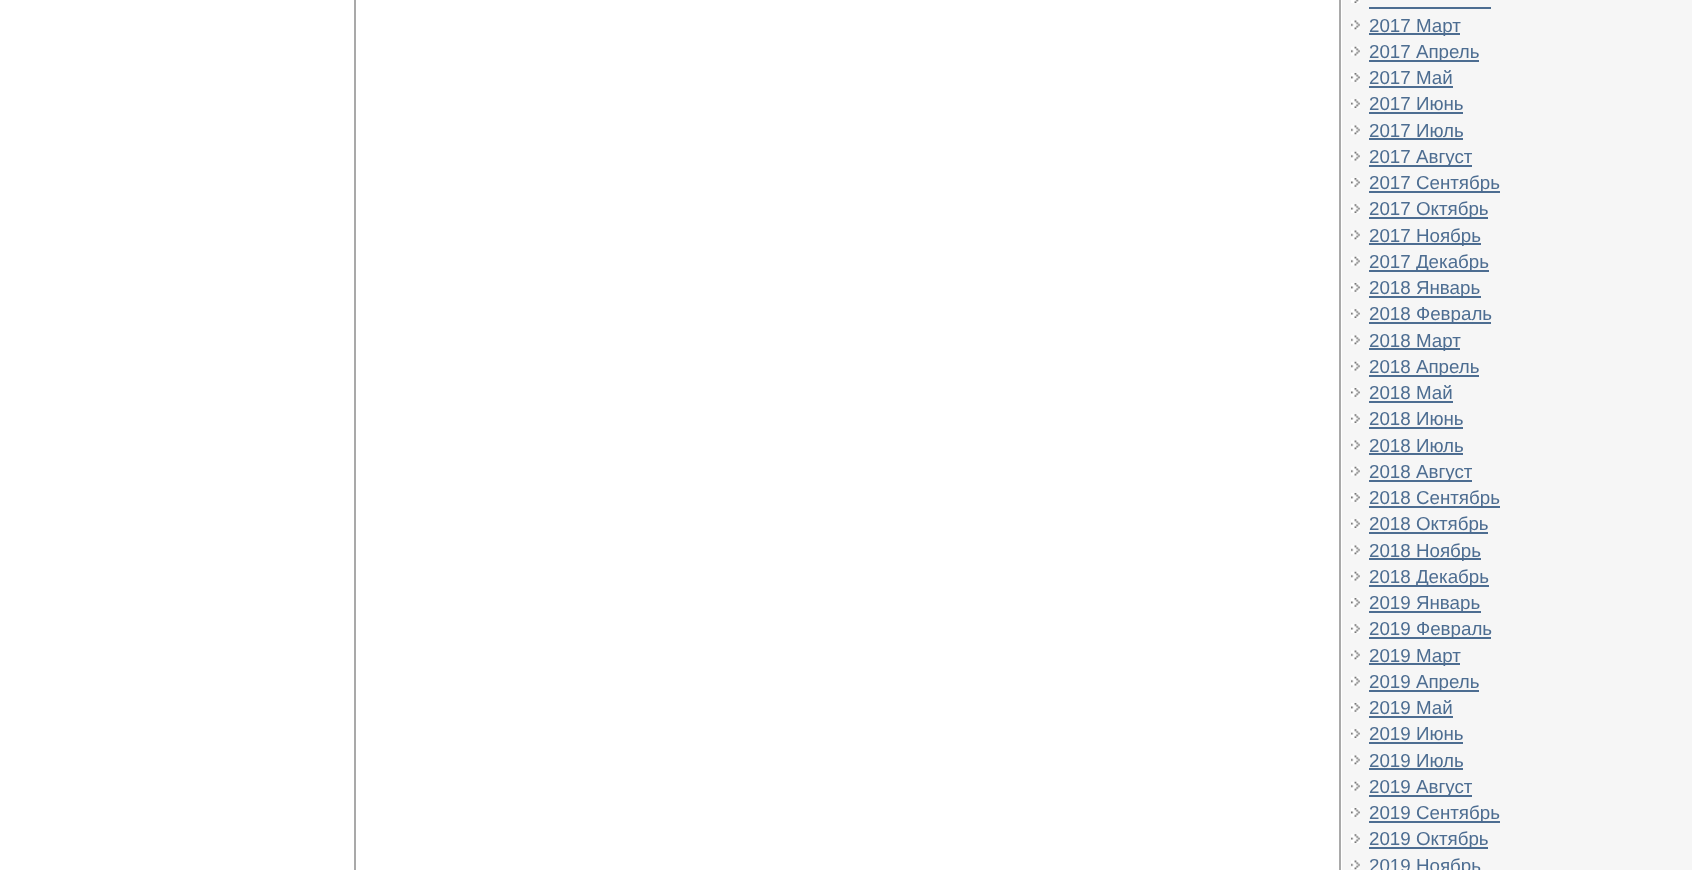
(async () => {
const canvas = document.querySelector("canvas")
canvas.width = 1696
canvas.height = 870
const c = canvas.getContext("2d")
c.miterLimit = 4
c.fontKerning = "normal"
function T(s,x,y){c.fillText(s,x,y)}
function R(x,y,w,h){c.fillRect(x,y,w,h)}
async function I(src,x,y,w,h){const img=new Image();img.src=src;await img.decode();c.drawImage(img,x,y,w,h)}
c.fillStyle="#fff"
R(0,0,1696,870)
c.fillStyle="#a9a9a9"
R(1339,0,2,870)
R(354,0,2,870)
c.fillStyle="#f6f6f6"
R(1342,0,350,870)
await I("1.png",1351,0,9,3)
c.fillStyle="#4d6d91"
R(1369,7,122,2)
await I("2.png",1351,20,9,10)
R(1369,33,91,2)
c.font="18.75px Liberation Sans"
T("2017 Март",1369,32)
await I("3.png",1351,46,9,10)
R(1369,60,110,2)
T("2017 Апрель",1369,58)
await I("4.png",1351,73,9,9)
T("2017 Май",1369,84)
R(1369,86,84,2)
await I("5.png",1351,99,9,9)
T("2017 Июнь",1369,110)
R(1369,112,94,2)
await I("2.png",1351,125,9,10)
T("2017 Июль",1369,137)
R(1369,138,94,2)
await I("3.png",1351,151,9,10)
R(1369,165,103,2)
T("2017 Август",1369,163)
await I("4.png",1351,178,9,9)
R(1369,191,131,2)
T("2017 Сентябрь",1369,189)
await I("5.png",1351,204,9,9)
R(1369,217,119,2)
T("2017 Октябрь",1369,215)
await I("2.png",1351,230,9,10)
R(1369,243,112,2)
T("2017 Ноябрь",1369,242)
await I("3.png",1351,256,9,10)
R(1369,270,120,2)
T("2017 Декабрь",1369,268)
await I("4.png",1351,283,9,9)
R(1369,296,112,2)
T("2018 Январь",1369,294)
await I("5.png",1351,309,9,9)
R(1369,322,122,2)
T("2018 Февраль",1369,320)
await I("2.png",1351,335,9,10)
R(1369,348,91,2)
T("2018 Март",1369,347)
await I("3.png",1351,361,9,10)
R(1369,375,110,2)
T("2018 Апрель",1369,373)
await I("4.png",1351,388,9,9)
T("2018 Май",1369,399)
R(1369,401,84,2)
await I("5.png",1351,414,9,9)
T("2018 Июнь",1369,425)
R(1369,427,94,2)
await I("2.png",1351,440,9,10)
T("2018 Июль",1369,452)
R(1369,453,94,2)
await I("3.png",1351,466,9,10)
R(1369,480,103,2)
T("2018 Август",1369,478)
await I("4.png",1351,493,9,9)
R(1369,506,131,2)
T("2018 Сентябрь",1369,504)
await I("5.png",1351,519,9,9)
R(1369,532,119,2)
T("2018 Октябрь",1369,530)
await I("2.png",1351,545,9,10)
R(1369,558,112,2)
T("2018 Ноябрь",1369,557)
await I("3.png",1351,571,9,10)
R(1369,585,120,2)
T("2018 Декабрь",1369,583)
await I("4.png",1351,598,9,9)
R(1369,611,112,2)
T("2019 Январь",1369,609)
await I("5.png",1351,624,9,9)
R(1369,637,122,2)
T("2019 Февраль",1369,635)
await I("2.png",1351,650,9,10)
R(1369,663,91,2)
T("2019 Март",1369,662)
await I("3.png",1351,676,9,10)
R(1369,690,110,2)
T("2019 Апрель",1369,688)
await I("4.png",1351,703,9,9)
T("2019 Май",1369,714)
R(1369,716,84,2)
await I("5.png",1351,729,9,9)
T("2019 Июнь",1369,740)
R(1369,742,94,2)
await I("2.png",1351,755,9,10)
T("2019 Июль",1369,767)
R(1369,768,94,2)
await I("3.png",1351,781,9,10)
R(1369,795,103,2)
T("2019 Август",1369,793)
await I("4.png",1351,808,9,9)
R(1369,821,131,2)
T("2019 Сентябрь",1369,819)
await I("5.png",1351,834,9,9)
R(1369,847,119,2)
T("2019 Октябрь",1369,845)
await I("2.png",1351,860,9,10)
T("2019 Ноябрь",1369,872)
})()
